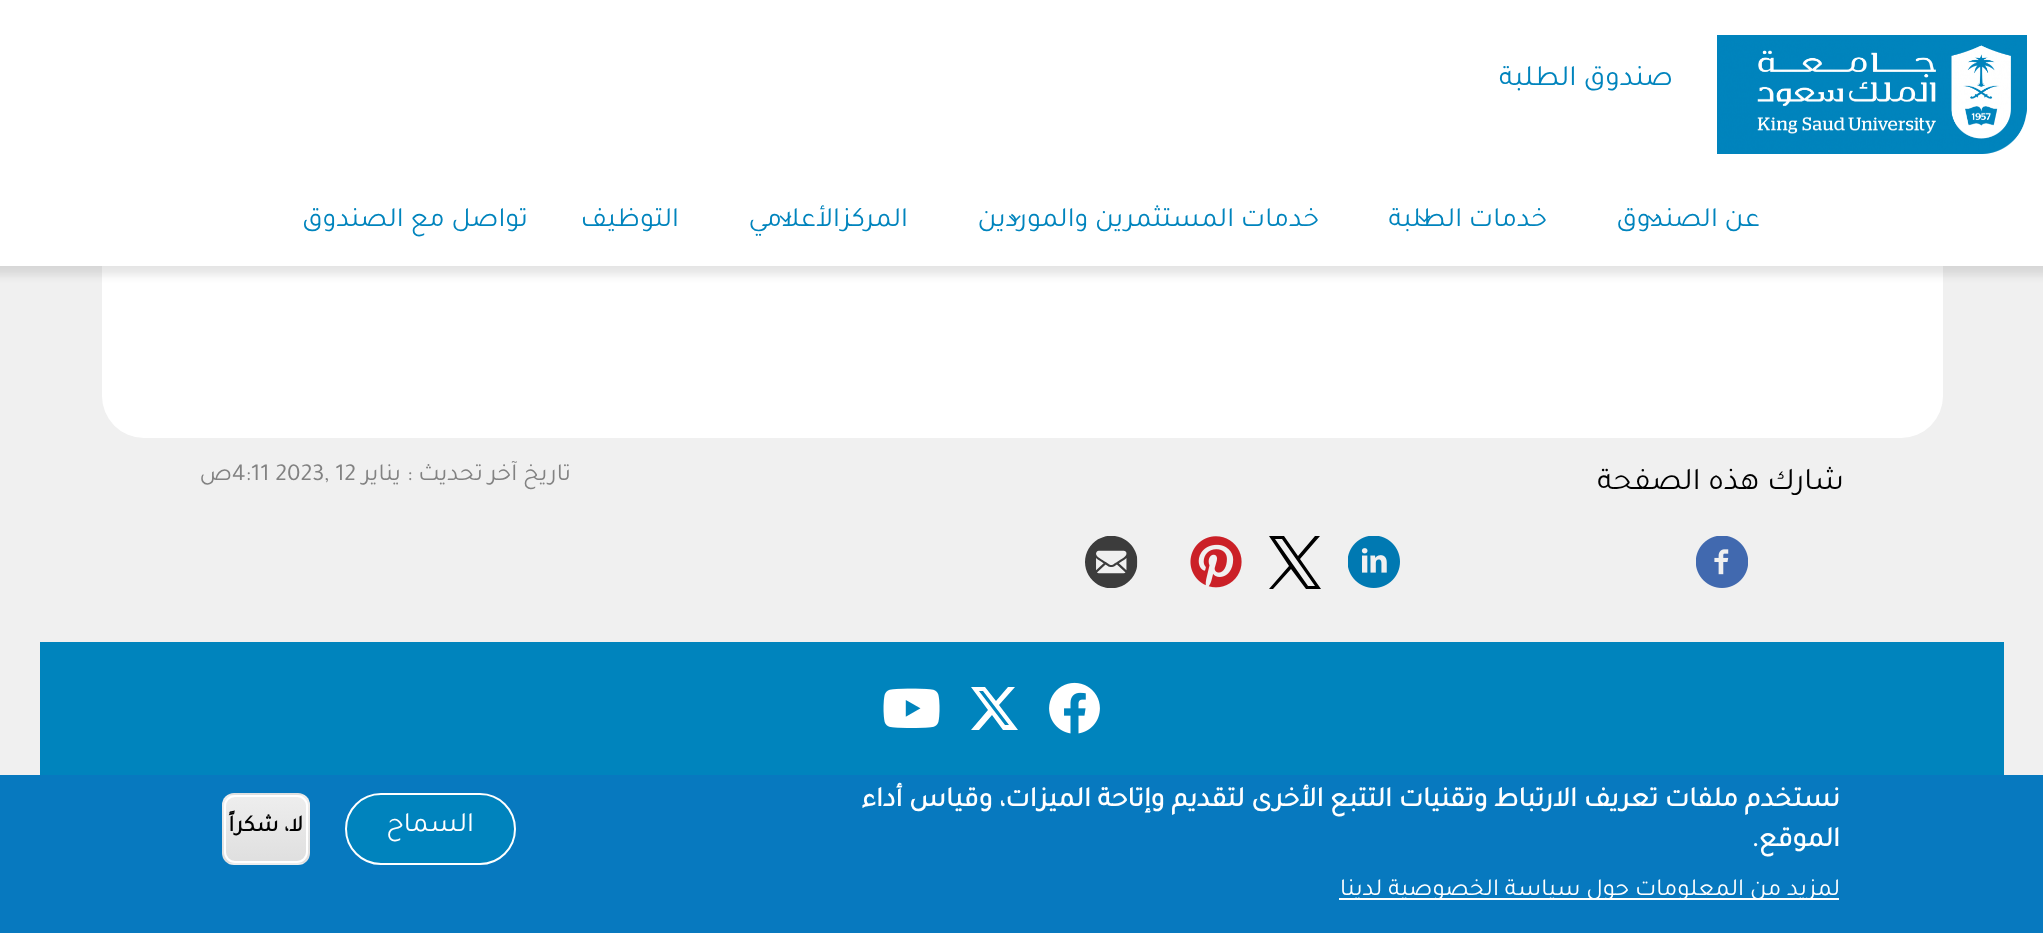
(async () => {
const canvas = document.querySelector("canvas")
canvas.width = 2043
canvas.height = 933
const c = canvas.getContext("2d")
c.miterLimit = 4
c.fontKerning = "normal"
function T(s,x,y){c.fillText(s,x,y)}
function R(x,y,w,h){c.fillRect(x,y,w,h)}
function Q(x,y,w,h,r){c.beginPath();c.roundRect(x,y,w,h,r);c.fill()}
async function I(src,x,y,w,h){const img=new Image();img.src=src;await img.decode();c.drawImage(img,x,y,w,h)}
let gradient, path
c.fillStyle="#f0f0f0"
R(0,0,2043,933)
c.fillStyle="#fff"
Q(102,-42,1841,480,42)
c.fillStyle="#0000001a"
c.filter="blur(4.5px)"
c.beginPath()
c.rect(-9,-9,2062,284)
c.fill()
c.filter="none"
c.fillStyle="#fff"
R(0,0,2043,266)
await I("1.png",1717,35,310,119)
c.direction="rtl"
c.font="29.5px Tajawal"
c.fillStyle="#0084bd"
T("صندوق الطلبة",1673,85)
c.font="28px Tajawal"
T("عن الصندوق",1760,226)
await I("2.png",1647,215,13,8)
T("خدمات الطلبة",1547,226)
await I("3.png",1418,215,12,8)
T("خدمات المستثمرين والموردين",1319,226)
await I("4.png",1008,215,13,7)
T("المركزالأعلامي",908,226)
await I("5.png",779,215,13,8)
T("التوظيف",679,226)
T("تواصل مع الصندوق",528,226)
c.font="31.5px Tajawal"
c.fillStyle="#000"
T("شارك هذه الصفحة",1844,489)
await I("6.png",1696,536,52,52)
await I("7.png",1348,536,52,52)
path = new Path2D("M1300 559l20-23h-5l-17 20l-14-20h-15l20 30l-20 23h4l18-20l15 20h15zm-6 7l-19-27h7l33 47h-7z")
c.fill(path)
await I("8.png",1190,536,52,52)
await I("9.png",1085,536,53,52)
c.font="24.5px Tajawal"
c.fillStyle="#828282"
T("تاريخ آخر تحديث :",571,480)
T("يناير",401,480)
c.direction="ltr"
T("4:11 2023, 12",232,480)
c.direction="rtl"
T("ص",232,480)
c.fillStyle="#0084bd"
R(40,642,1964,133)
await I("10.png",1049,682,51,52)
c.fillStyle="#fff"
path = new Path2D("M1008 687h7l-16 18l19 25h-15l-11-15l-13 15h-8l17-20l-17-23h14l11 14zm-3 38h4l-26-34h-4z")
c.fill(path)
await I("11.png",883,688,57,40)
c.fillStyle="#0779bf"
R(0,775,2043,158)
c.font="bold 28px Tajawal"
c.fillStyle="#fff"
T("نستخدم ملفات تعريف الارتباط وتقنيات التتبع الأخرى لتقديم وإتاحة الميزات، وقياس أداء",1840,806)
T("الموقع.",1840,846)
R(1339,898,500,2)
c.font="24.5px Tajawal"
T("لمزيد من المعلومات حول سياسة الخصوصية لدينا",1840,895)
c.fillStyle="#0083bd"
c.beginPath()
c.roundRect(346,794,169,70,35)
c.fill()
c.strokeStyle="#fff"
c.lineWidth=2
c.stroke()
c.font="28px Tajawal"
c.fillStyle="#fff"
T("السماح",474,831)
c.save()
c.beginPath()
c.roundRect(222,793,88,72,12)
c.clip()
gradient = c.createLinearGradient(266,726,266,795)
gradient.addColorStop(.05,"#ededed")
gradient.addColorStop(1,"#dfdfdf")
c.fillStyle = gradient
R(222,793,88,2)
gradient = c.createLinearGradient(266,795,266,863)
gradient.addColorStop(.05,"#ededed")
gradient.addColorStop(1,"#dfdfdf")
c.fillStyle = gradient
R(222,795,88,68)
gradient = c.createLinearGradient(266,863,266,931)
gradient.addColorStop(.05,"#ededed")
gradient.addColorStop(1,"#dfdfdf")
c.fillStyle = gradient
R(222,863,88,2)
c.restore()
c.beginPath()
c.roundRect(225,796,82,66,10)
c.stroke()
c.font="bold 23px Tajawal"
c.fillStyle="#000"
T("لا، شكراً",303,831)
})()
